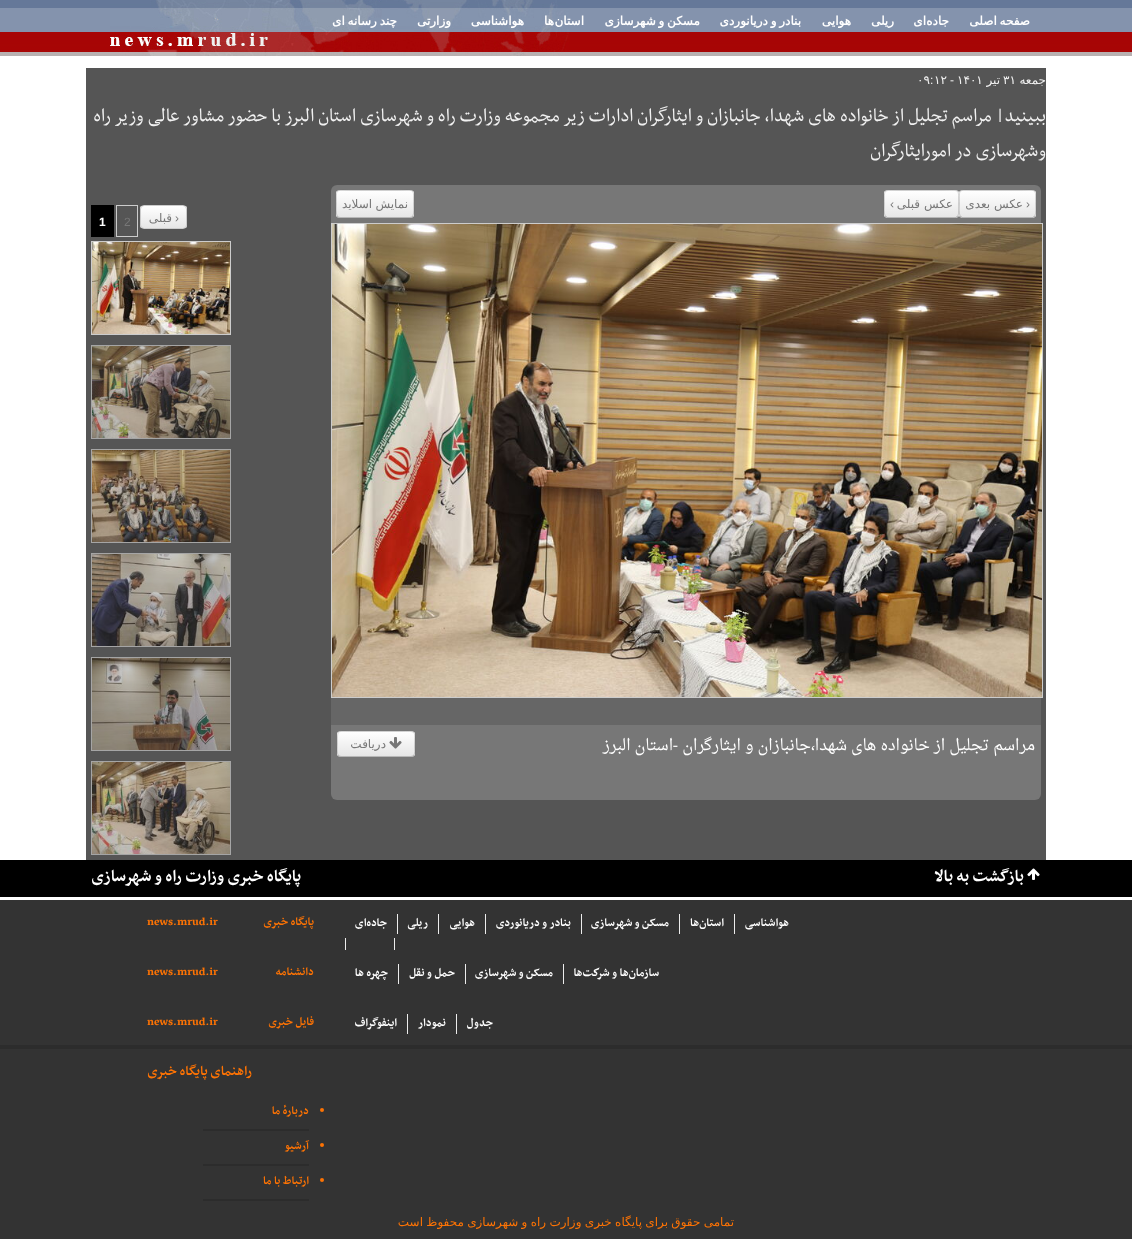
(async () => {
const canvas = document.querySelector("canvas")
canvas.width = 1132
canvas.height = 1239
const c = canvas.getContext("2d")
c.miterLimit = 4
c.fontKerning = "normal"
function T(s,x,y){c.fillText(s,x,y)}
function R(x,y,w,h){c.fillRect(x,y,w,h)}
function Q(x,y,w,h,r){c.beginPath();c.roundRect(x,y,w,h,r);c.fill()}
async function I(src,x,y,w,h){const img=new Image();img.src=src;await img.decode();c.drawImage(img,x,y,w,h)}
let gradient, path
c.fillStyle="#fff"
R(0,0,1132,1239)
await I("1.png",0,0,1132,56)
await I("2.png",110,0,459,56)
c.wordSpacing="-1px"
c.direction="rtl"
c.font="bold 12px DejaVu Sans"
T("صفحه اصلی",1030,25)
c.wordSpacing="0px"
T("جاده",949,25)
T("ای",926,25)
T("ریلی",894,25)
T("هوایی",851,25)
c.wordSpacing="-1px"
T("بنادر و دریانوردی",801,25)
T("مسکن و شهرسازی",700,25)
c.wordSpacing="0px"
T("استان",584,25)
T("ها",554,25)
T("هواشناسی",524,25)
T("وزارتی",451,25)
c.wordSpacing="-1px"
T("چند رسانه ای",397,25)
c.fillStyle="#555"
R(86,68,960,792)
c.wordSpacing="0px"
c.font="12px DejaVu Sans"
c.fillStyle="#f1f1f1"
T("جمعه",1046,84)
c.direction="ltr"
T("۳۱",1003,84)
c.direction="rtl"
T("تیر",1000,84)
c.direction="ltr"
T("۱۴۰۱",957,84)
c.font="12px Liberation Sans"
T("-",950,84)
c.font="12px DejaVu Sans"
T("۱۲",934,84)
c.font="12px Liberation Sans"
T(":",930,84)
c.font="12px DejaVu Sans"
T("۰۹",917,84)
c.direction="rtl"
c.font="21.6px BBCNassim"
T("ببینید| مراسم تجلیل از خانواده های شهدا، جانبازان و ایثارگران ادارات زیر مجموعه وزارت راه و شهرسازی استان البرز",1046,121)
T("با حضور مشاور عالی وزیر راه",281,121)
T("وشهرسازی در امورایثارگران",1046,156)
c.fillStyle="#777"
Q(331,185,710,615,6)
c.fillStyle="#f5f5f5"
Q(884,190,75,28,4)
c.save()
c.beginPath()
c.roundRect(884,190,75,28,4)
c.clip()
gradient = c.createLinearGradient(922,191,922,217)
gradient.addColorStop(0,"#fff")
gradient.addColorStop(1,"#e6e6e6")
c.fillStyle = gradient
R(884,191,75,26)
c.restore()
path = new Path2D("M957.5 216.5l-2 1h-68l-2-1")
c.strokeStyle="#00000040"
c.stroke(path)
path = new Path2D("M885.5 216.5c-2-2.5-1-10-1-12.5c0-15.5-2-13.5 14.5-13.5h45c16.5 0 14.5-2 14.5 13.5c0 2.5 1 10-1 12.5")
c.strokeStyle="#00000026"
c.stroke(path)
Q(959,190,77,28,4)
c.save()
c.beginPath()
c.roundRect(959,190,77,28,4)
c.clip()
gradient = c.createLinearGradient(998,191,998,217)
gradient.addColorStop(0,"#fff")
gradient.addColorStop(1,"#e6e6e6")
c.fillStyle = gradient
R(959,191,77,26)
c.restore()
path = new Path2D("M1034.5 216.5l-2 1h-70l-2-1")
c.strokeStyle="#00000040"
c.stroke(path)
path = new Path2D("M960.5 216.5c-2-2.5-1-10-1-12.5c0-16-2-13.5 15-13.5h46c17 0 15-2.5 15 13.5c0 2.5 1 10-1 12.5")
c.strokeStyle="#00000026"
c.stroke(path)
c.font="12px Liberation Sans"
c.fillStyle="#777"
T("‹",1030,208)
c.font="12px DejaVu Sans"
T("عکس بعدی",1023,208)
T("عکس قبلی",953,208)
c.font="12px Liberation Sans"
T("›",894,208)
c.fillStyle="#f5f5f5"
Q(336,190,78,28,4)
c.save()
c.beginPath()
c.roundRect(336,190,78,28,4)
c.clip()
gradient = c.createLinearGradient(375,191,375,217)
gradient.addColorStop(0,"#fff")
gradient.addColorStop(1,"#e6e6e6")
c.fillStyle = gradient
R(336,191,78,26)
c.restore()
path = new Path2D("M412.5 216.5c-.5 .5-1.5 1-2.5 1h-70c-1 0-2-.5-2.5-1")
c.strokeStyle="#00000040"
c.stroke(path)
path = new Path2D("M337.5 216.5c-2-2.5-1-10-1-12.5c0-16-2-13.5 15-13.5h47c17 0 15-2.5 15 13.5c0 2.5 1 10-1 12.5")
c.strokeStyle="#00000026"
c.stroke(path)
c.wordSpacing="-0.5px"
c.font="12px DejaVu Sans"
c.fillStyle="#777"
T("نمایش اسلاید",408,208)
c.fillStyle="#666"
R(331,698,710,27)
c.strokeStyle="#ccc"
c.strokeRect(331.5,223.5,711,474)
await I("3.png",332,224,710,473)
c.wordSpacing="0px"
c.font="15.6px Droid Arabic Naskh"
c.fillStyle="#fff"
T("مراسم تجلیل از خانواده های شهدا،جانبازان و ایثارگران",1035,750)
c.font="15.6px Liberation Serif"
T("-",678,750)
c.font="15.6px Droid Arabic Naskh"
T("استان البرز",673,750)
c.fillStyle="#f5f5f5"
Q(337,731,78,26,4)
c.save()
c.beginPath()
c.roundRect(337,731,78,26,4)
c.clip()
gradient = c.createLinearGradient(376,732,376,756)
gradient.addColorStop(0,"#fff")
gradient.addColorStop(1,"#e6e6e6")
c.fillStyle = gradient
R(337,732,78,24)
c.restore()
path = new Path2D("M413.5 755.5c-.5 .5-1.5 1-2.5 1h-70c-1 0-2-.5-2.5-1")
c.strokeStyle="#00000040"
c.stroke(path)
path = new Path2D("M338.5 755.5c-2-2-1-9-1-11.5c0-15-1-12.5 15-12.5h47c18 0 15-2 15 15.5c0 2.5 1 6.5-1 8.5")
c.strokeStyle="#00000026"
c.stroke(path)
await I("4.png",389,737,13,12)
c.font="12px DejaVu Sans"
c.fillStyle="#777"
T("دریافت",386,748)
c.save()
c.beginPath()
c.roundRect(140,205,47,24,4)
c.clip()
gradient = c.createLinearGradient(164,206,164,228)
gradient.addColorStop(0,"#fff")
gradient.addColorStop(1,"#e6e6e6")
c.fillStyle = gradient
R(140,206,47,22)
c.restore()
c.beginPath()
c.roundRect(140.5,205.5,46,23,3.5)
c.strokeStyle="#ccc"
c.stroke()
c.direction="ltr"
c.font="12px Liberation Sans"
T("›",175,222)
c.direction="rtl"
c.font="12px DejaVu Sans"
T("قبلی",172,222)
c.strokeRect(116.5,205.5,21,31)
c.direction="ltr"
c.font="12px Liberation Sans"
T("2",124,226)
c.fillStyle="#000"
R(91,205,23,32)
c.font="bold 12px Liberation Sans"
c.fillStyle="#fff"
T("1",99,226)
c.strokeRect(91.5,241.5,139,93)
await I("5.png",92,242,138,92)
c.strokeStyle="#a5a5a5"
c.strokeRect(91.5,345.5,139,93)
await I("6.png",92,346,138,92)
c.strokeRect(91.5,449.5,139,93)
await I("7.png",92,450,138,92)
c.strokeRect(91.5,553.5,139,93)
await I("8.png",92,554,138,92)
c.strokeRect(91.5,657.5,139,93)
await I("9.png",92,658,138,92)
c.strokeRect(91.5,761.5,139,93)
await I("10.png",92,762,138,92)
c.fillStyle="#333"
R(0,1049,1132,190)
await I("11.png",0,860,1132,189)
await I("12.png",1027,868,13,12)
c.direction="rtl"
c.font="bold 19.25px BBCNassim"
c.fillStyle="#fff"
T("بازگشت به بالا",1024,881)
T("پایگاه خبری وزارت راه و شهرسازی",301,881)
c.fillStyle="#ececec"
R(734,914,1,20)
c.font="bold 13.25px BBCNassim"
c.fillStyle="#fff"
T("هواشناسی",789,926)
c.fillStyle="#ececec"
R(679,914,1,20)
c.fillStyle="#fff"
T("استان‌ها",724,926)
c.fillStyle="#ececec"
R(581,914,1,20)
c.fillStyle="#fff"
T("مسکن و شهرسازی",669,926)
c.fillStyle="#ececec"
R(485,914,1,20)
c.fillStyle="#fff"
T("بنادر و دریانوردی",571,926)
c.fillStyle="#ececec"
R(438,914,1,20)
c.fillStyle="#fff"
T("هوایی",475,926)
c.fillStyle="#ececec"
R(397,914,1,20)
c.fillStyle="#fff"
T("ریلی",428,926)
T("جاده‌ای",387,926)
c.fillStyle="#ececec"
R(394,938,1,12)
R(345,938,1,12)
c.fillStyle="#fd7304"
T("پایگاه خبری",314,925)
c.direction="ltr"
T("news.mrud.ir",147,925)
c.fillStyle="#ececec"
R(563,964,1,20)
c.direction="rtl"
c.fillStyle="#fff"
T("سازما‌ن‌ها و شركت‌ها",659,976)
c.fillStyle="#ececec"
R(465,964,1,20)
c.fillStyle="#fff"
T("مسکن و شهرسازی",553,976)
c.fillStyle="#ececec"
R(398,964,1,20)
c.fillStyle="#fff"
T("حمل و نقل",455,976)
T("چهره ها",388,976)
c.fillStyle="#fd7304"
T("دانشنامه",314,975)
c.direction="ltr"
T("news.mrud.ir",147,975)
c.fillStyle="#ececec"
R(456,1014,1,20)
c.direction="rtl"
c.fillStyle="#fff"
T("جدول",493,1026)
c.fillStyle="#ececec"
R(407,1014,1,20)
c.fillStyle="#fff"
T("نمودار",446,1026)
T("اینفوگراف",397,1026)
c.fillStyle="#fd7304"
T("فایل خبری",314,1025)
c.direction="ltr"
T("news.mrud.ir",147,1025)
c.direction="rtl"
c.font="bold 15.75px BBCNassim"
T("راهنمای پایگاه خبری",252,1075)
c.fillStyle="#2c2c2c"
R(203,1129,106,2)
c.fillStyle="#fd7304"
c.beginPath()
c.arc(322,1110,2,0,7)
c.fill()
c.font="bold 13.25px BBCNassim"
T("دربارهٔ ما",309,1114)
c.fillStyle="#2c2c2c"
R(203,1164,106,2)
c.fillStyle="#fd7304"
c.beginPath()
c.arc(322,1145,2,0,7)
c.fill()
T("آرشیو",309,1149)
c.fillStyle="#2c2c2c"
R(203,1199,106,2)
c.fillStyle="#fd7304"
c.beginPath()
c.arc(322,1180,2,0,7)
c.fill()
T("ارتباط با ما",309,1184)
c.wordSpacing="-0.5px"
c.font="12px DejaVu Sans"
T("تمامی حقوق برای پایگاه خبری وزارت راه و شهرسازی محفوظ است",734,1226)
})()
